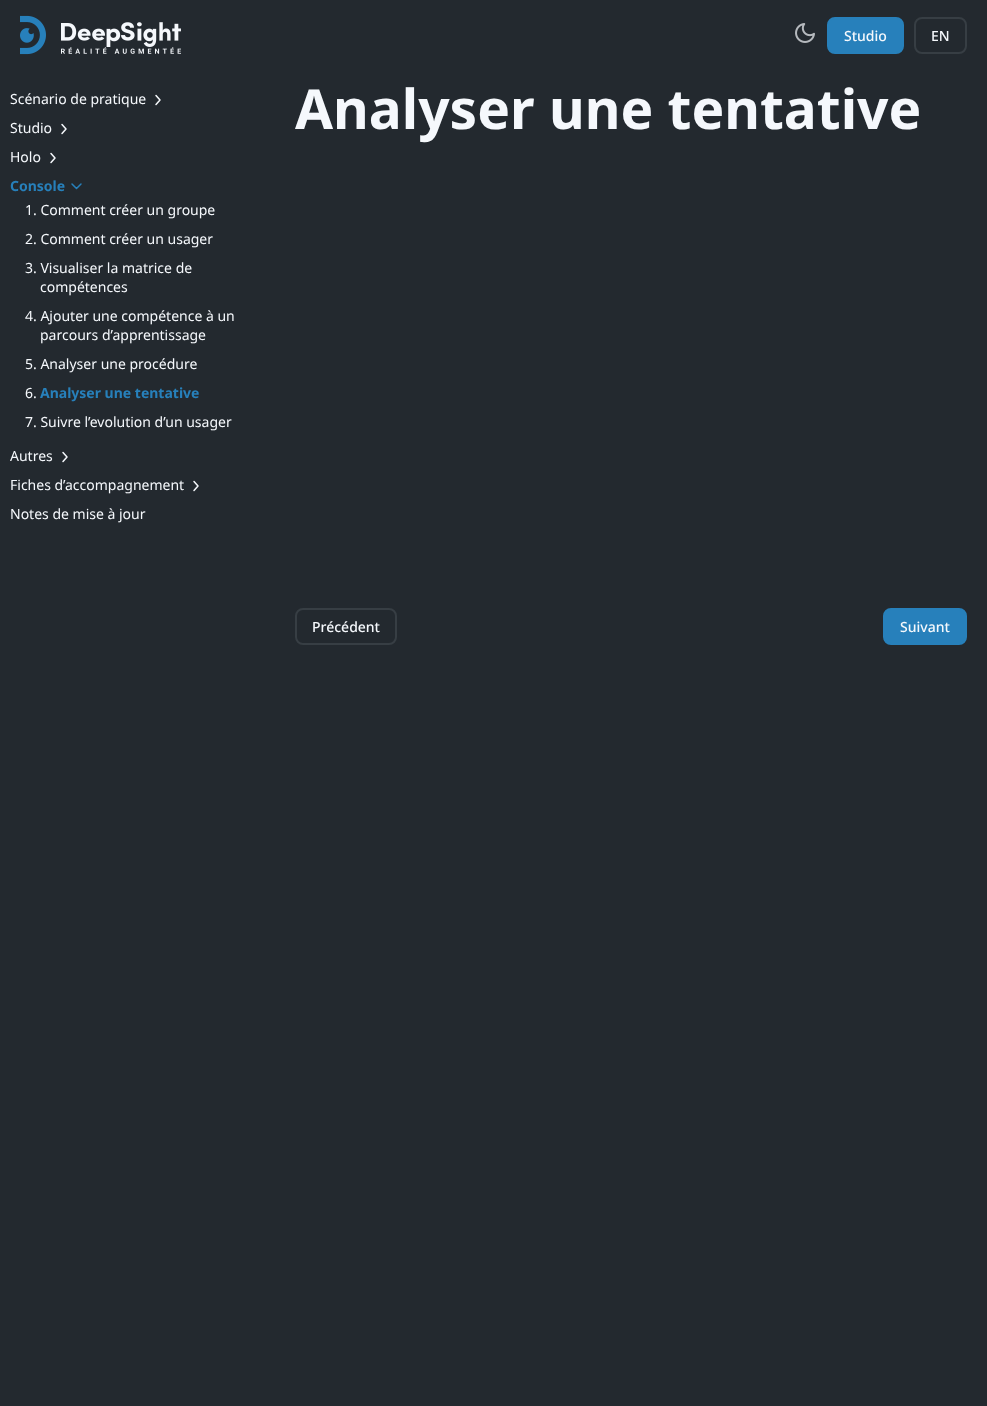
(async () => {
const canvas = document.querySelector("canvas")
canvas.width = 987
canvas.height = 1406
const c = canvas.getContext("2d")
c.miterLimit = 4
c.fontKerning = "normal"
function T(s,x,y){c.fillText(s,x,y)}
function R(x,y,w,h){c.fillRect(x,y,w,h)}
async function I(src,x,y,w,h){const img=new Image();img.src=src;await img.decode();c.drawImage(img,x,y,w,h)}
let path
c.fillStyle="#23292f"
R(0,0,987,1406)
await I("1.png",20,15,26,40)
await I("2.png",61,22,120,32)
await I("3.png",795,23,20,20)
c.fillStyle="#2780bb"
c.beginPath()
c.roundRect(828,18,75,35,7)
c.fill()
c.strokeStyle="#2780bb"
c.lineWidth=2
c.stroke()
c.font="500 14px Noto Sans"
c.fillStyle="#f5f8fc"
T("Studio",844,41)
c.beginPath()
c.roundRect(915,18,51,35,7)
c.strokeStyle="#373e44"
c.stroke()
T("EN",931,41)
c.font="14px Noto Sans"
T("Scénario de pratique",10,104)
path = new Path2D("M156 104.5l4-4.5l-4-4.5")
c.strokeStyle="#f5f8fc"
c.lineWidth=1.5
c.lineCap="round"
c.lineJoin="round"
c.stroke(path)
T("Studio",10,133)
path = new Path2D("M62 133.5l4-4.5l-4-4.5m-11 38l4-4.5l-4-4.5")
c.stroke(path)
T("Holo",10,162)
c.font="bold 14px Noto Sans"
c.fillStyle="#2780bb"
T("Console",10,191)
path = new Path2D("M72 184l4.5 4.5l4.5-4.5")
c.strokeStyle="#2780bb"
c.stroke(path)
c.font="14px Noto Sans"
c.fillStyle="#f5f8fc"
T("1. Comment créer un groupe",25,215)
T("2. Comment créer un usager",25,244)
T("3. Visualiser la matrice de",25,273)
T("compétences",40,292)
T("4. Ajouter une compétence à un",25,321)
T("parcours d’apprentissage",40,340)
T("5. Analyser une procédure",25,369)
T("6.",25,398)
c.font="bold 14px Noto Sans"
c.fillStyle="#2780bb"
T("Analyser une tentative",40,398)
c.font="14px Noto Sans"
c.fillStyle="#f5f8fc"
T("7. Suivre l’evolution d’un usager",25,427)
T("Autres",10,461)
path = new Path2D("M63 461.5l4-4.5l-4-4.5")
c.strokeStyle="#f5f8fc"
c.stroke(path)
T("Fiches d’accompagnement",10,490)
path = new Path2D("M194 490.5l4-4.5l-4-4.5")
c.stroke(path)
T("Notes de mise à jour",10,519)
c.font="bold 55px Noto Sans"
T("Analyser une tentative",295,129)
c.beginPath()
c.roundRect(296,609,100,35,7)
c.strokeStyle="#373e44"
c.lineWidth=2
c.lineJoin="miter"
c.stroke()
c.font="500 14px Noto Sans"
T("Précédent",312,632)
c.fillStyle="#2780bb"
c.beginPath()
c.roundRect(884,609,82,35,7)
c.fill()
c.strokeStyle="#2780bb"
c.stroke()
c.fillStyle="#f5f8fc"
T("Suivant",900,632)
})()
